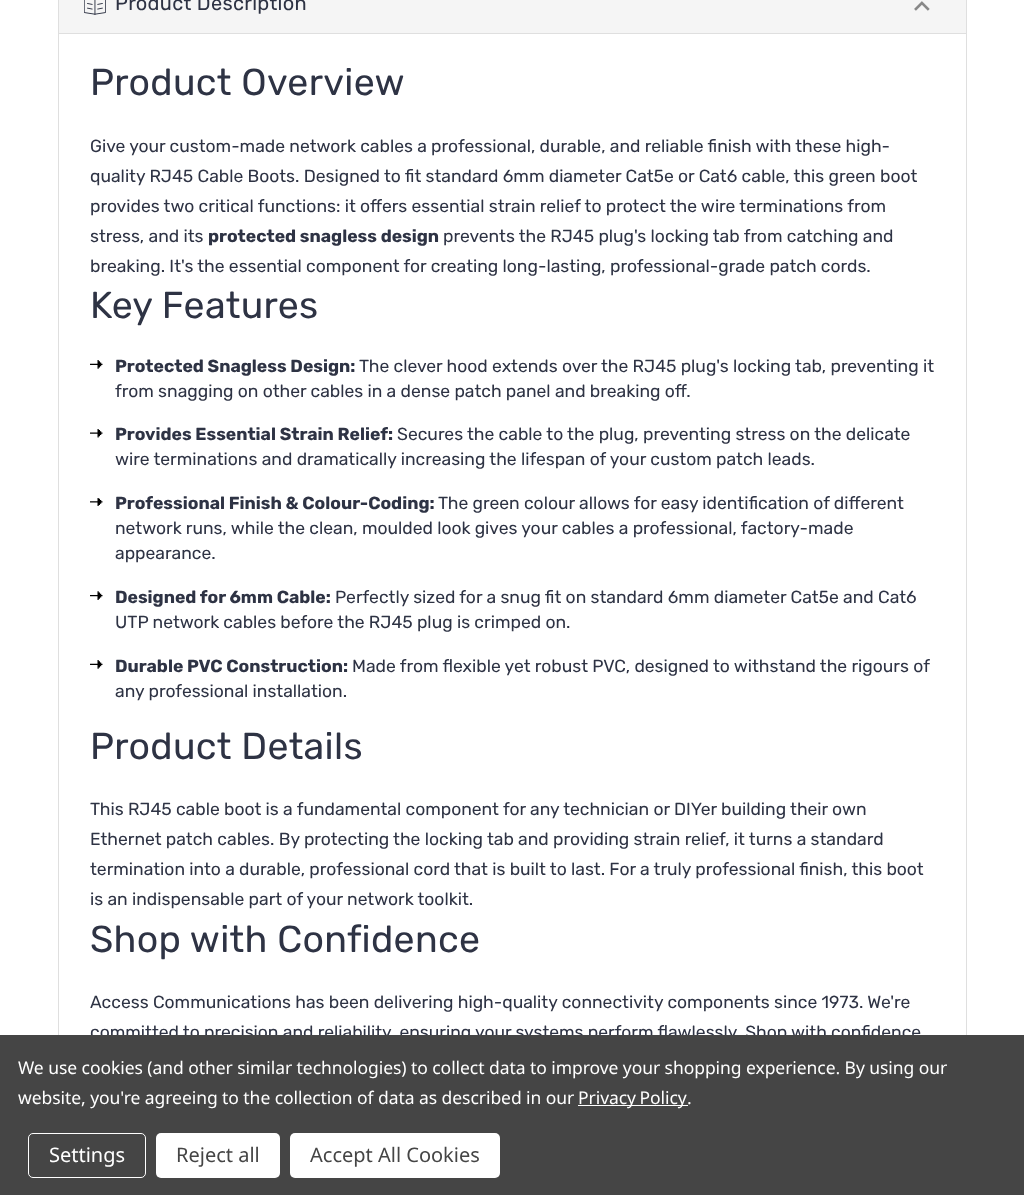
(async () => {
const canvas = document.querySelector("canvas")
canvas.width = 1024
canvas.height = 1195
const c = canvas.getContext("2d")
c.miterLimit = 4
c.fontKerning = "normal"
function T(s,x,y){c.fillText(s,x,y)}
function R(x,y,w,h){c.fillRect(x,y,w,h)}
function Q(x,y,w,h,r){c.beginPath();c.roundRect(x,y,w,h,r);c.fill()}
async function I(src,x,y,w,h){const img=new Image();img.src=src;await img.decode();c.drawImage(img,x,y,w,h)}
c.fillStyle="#fff"
R(0,0,1024,1195)
c.fillStyle="#dfdfdf"
R(966,0,1,1035)
R(58,0,1,1035)
R(59,33,907,1)
c.fillStyle="#f5f5f5"
R(59,0,907,33)
await I("1.png",84,0,22,15)
c.letterSpacing="0.3px"
c.font="20px Rubik"
c.fillStyle="#2e3344"
T("Product Description",115,10)
await I("2.png",914,1,16,10)
c.font="37.5px Rubik"
T("Product Overview",90,95)
c.letterSpacing="0px"
c.font="17.5px Rubik"
T("Give your custom-made network cables a professional, durable, and reliable finish with these high-",90,152)
T("quality RJ45 Cable Boots. Designed to fit standard 6mm diameter Cat5e or Cat6 cable, this green boot",90,182)
T("provides two critical functions: it offers essential strain relief to protect the wire terminations from",90,212)
T("stress, and its",90,242)
c.font="bold 17.5px Rubik"
T("protected snagless design",208,242)
c.font="17.5px Rubik"
T("prevents the RJ45 plug's locking tab from catching and",443,242)
T("breaking. It's the essential component for creating long-lasting, professional-grade patch cords.",90,272)
c.letterSpacing="0.3px"
c.font="37.5px Rubik"
T("Key Features",90,318)
await I("3.png",90,360,13,9)
c.letterSpacing="0px"
c.font="bold 17.5px Rubik"
T("Protected Snagless Design:",115,372)
c.font="17.5px Rubik"
T("The clever hood extends over the RJ45 plug's locking tab, preventing it",359,372)
T("from snagging on other cables in a dense patch panel and breaking off.",115,397)
await I("4.png",90,429,13,9)
c.font="bold 17.5px Rubik"
T("Provides Essential Strain Relief:",115,440)
c.font="17.5px Rubik"
T("Secures the cable to the plug, preventing stress on the delicate",397,440)
T("wire terminations and dramatically increasing the lifespan of your custom patch leads.",115,465)
await I("5.png",90,498,13,8)
c.font="bold 17.5px Rubik"
T("Professional Finish & Colour-Coding:",115,509)
c.font="17.5px Rubik"
T("The green colour allows for easy identification of different",438,509)
T("network runs, while the clean, moulded look gives your cables a professional, factory-made",115,534)
T("appearance.",115,559)
await I("6.png",90,591,13,9)
c.font="bold 17.5px Rubik"
T("Designed for 6mm Cable:",115,603)
c.font="17.5px Rubik"
T("Perfectly sized for a snug fit on standard 6mm diameter Cat5e and Cat6",335,603)
T("UTP network cables before the RJ45 plug is crimped on.",115,628)
await I("3.png",90,660,13,9)
c.font="bold 17.5px Rubik"
T("Durable PVC Construction:",115,672)
c.font="17.5px Rubik"
T("Made from flexible yet robust PVC, designed to withstand the rigours of",352,672)
T("any professional installation.",115,697)
c.letterSpacing="0.3px"
c.font="37.5px Rubik"
T("Product Details",90,759)
c.letterSpacing="0px"
c.font="17.5px Rubik"
T("This RJ45 cable boot is a fundamental component for any technician or DIYer building their own",90,815)
T("Ethernet patch cables. By protecting the locking tab and providing strain relief, it turns a standard",90,845)
T("termination into a durable, professional cord that is built to last. For a truly professional finish, this boot",90,875)
T("is an indispensable part of your network toolkit.",90,905)
c.letterSpacing="0.3px"
c.font="37.5px Rubik"
T("Shop with Confidence",90,952)
c.letterSpacing="0px"
c.font="17.5px Rubik"
T("Access Communications has been delivering high-quality connectivity components since 1973. We're",90,1008)
T("committed to precision and reliability, ensuring your systems perform flawlessly. Shop with confidence",90,1038)
c.fillStyle="#454545"
R(0,1035,1024,160)
c.letterSpacing="-0.06px"
c.font="17.5px Noto Sans"
c.fillStyle="#fff"
T("We use cookies (and other similar technologies) to collect data to improve your shopping experience. By using our",18,1074)
T("website, you're agreeing to the collection of data as described in our",18,1104)
R(578,1105,110,1)
c.wordSpacing="-1px"
T("Privacy Policy",578,1104)
c.wordSpacing="0px"
T(".",687,1104)
c.beginPath()
c.roundRect(28.5,1133.5,117,44,4.5)
c.strokeStyle="#fff"
c.stroke()
c.letterSpacing="0px"
c.font="20px Noto Sans"
T("Settings",49,1162)
Q(156,1133,124,45,5)
c.fillStyle="#454545"
T("Reject all",176,1162)
c.fillStyle="#fff"
Q(290,1133,210,45,5)
c.fillStyle="#454545"
T("Accept All Cookies",310,1162)
})()
